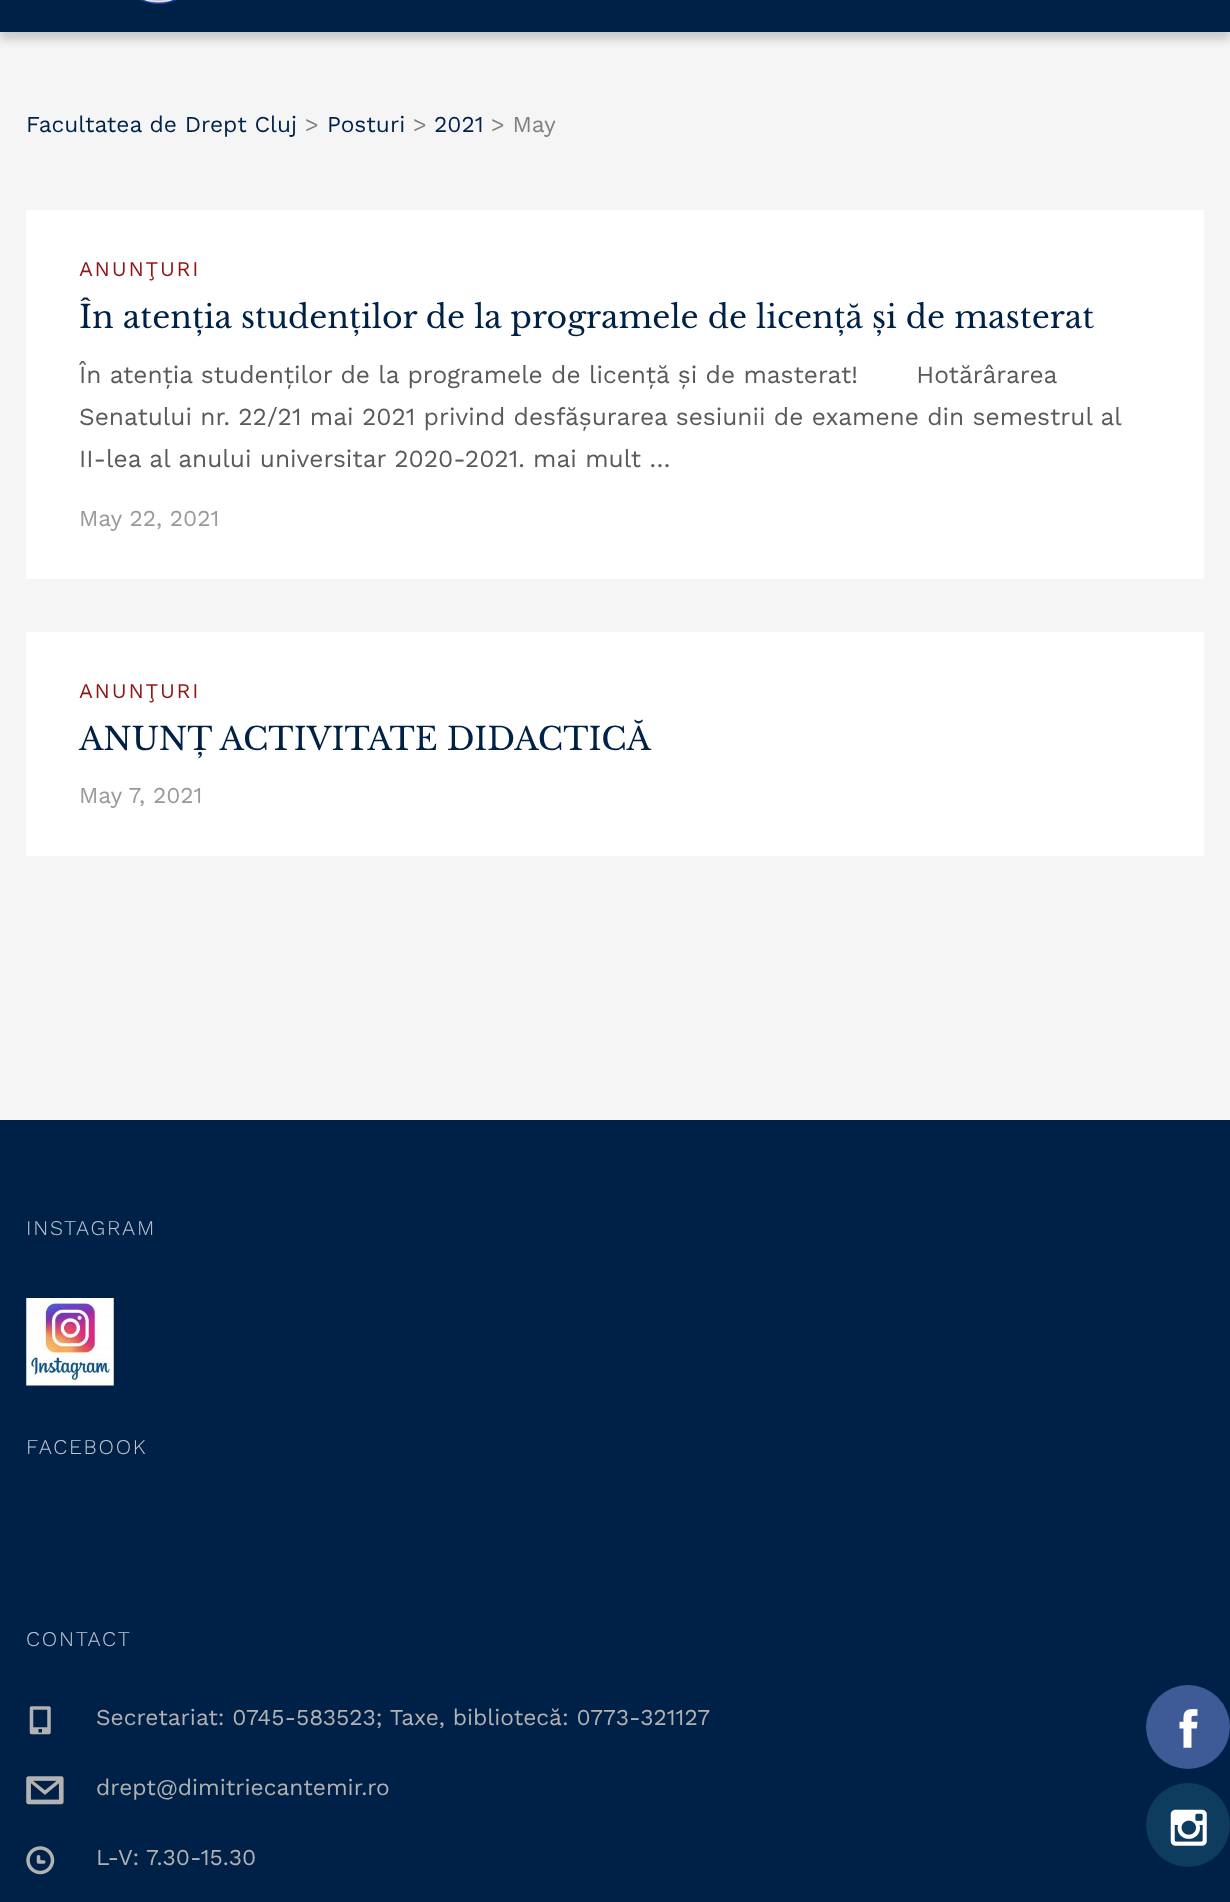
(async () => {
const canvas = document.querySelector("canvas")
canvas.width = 1230
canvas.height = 1902
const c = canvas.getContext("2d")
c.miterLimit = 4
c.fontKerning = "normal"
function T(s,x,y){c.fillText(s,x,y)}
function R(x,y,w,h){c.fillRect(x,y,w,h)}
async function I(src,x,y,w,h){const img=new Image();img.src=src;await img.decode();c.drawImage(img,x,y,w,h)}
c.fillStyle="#f5f5f5"
R(0,0,1230,1902)
c.fillStyle="#ccc"
c.filter="blur(4.5px)"
c.beginPath()
c.rect(0,-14,1230,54)
c.fill()
c.filter="none"
c.fillStyle="#002147"
R(0,0,1230,32)
await I("1.png",140,0,37,4)
c.font="22.75px Work Sans"
T("Facultatea de Drept Cluj",26,132)
c.fillStyle="#808080"
T(">",305,132)
c.fillStyle="#002147"
T("Posturi",327,132)
c.fillStyle="#808080"
T(">",413,132)
c.fillStyle="#002147"
T("2021",434,132)
c.fillStyle="#808080"
T("> May",491,132)
c.fillStyle="#fff"
R(26,210,1178,369)
c.letterSpacing="1.75px"
c.font="21px Work Sans"
c.fillStyle="#8c1515"
T("ANUNŢURI",79,276)
c.letterSpacing="0px"
c.font="31.5px Libre Baskerville"
c.fillStyle="#002147"
T("În atenția studenților de la programele de licență și de masterat",79,328)
c.font="24.5px Work Sans"
c.fillStyle="#595959"
T("În atenția studenților de la programele de licență și de masterat!       Hotărârarea",79,383)
T("Senatului nr. 22/21 mai 2021 privind desfășurarea sesiunii de examene din semestrul al",79,425)
T("II-lea al anului universitar 2020-2021. mai mult …",79,467)
c.font="22.75px Work Sans"
c.fillStyle="#999"
T("May 22, 2021",79,526)
c.fillStyle="#fff"
R(26,632,1178,224)
c.letterSpacing="1.75px"
c.font="21px Work Sans"
c.fillStyle="#8c1515"
T("ANUNŢURI",79,698)
c.letterSpacing="0px"
c.font="31.5px Libre Baskerville"
c.fillStyle="#002147"
T("ANUNȚ ACTIVITATE DIDACTICĂ",79,750)
c.font="22.75px Work Sans"
c.fillStyle="#999"
T("May 7, 2021",79,803)
c.fillStyle="#002147"
R(0,1120,1230,782)
c.letterSpacing="1.75px"
c.font="300 21px Work Sans"
c.fillStyle="#bfc8d1"
T("INSTAGRAM",26,1235)
await I("2.png",26,1298,88,88)
T("FACEBOOK",26,1454)
T("CONTACT",26,1646)
await I("3.png",29,1706,22,29)
c.letterSpacing="0px"
c.font="22.75px Work Sans"
c.fillStyle="#b2b2b2"
T("Secretariat: 0745-583523; Taxe, bibliotecă: 0773-321127",96,1725)
await I("4.png",26,1776,38,29)
T("drept@dimitriecantemir.ro",96,1795)
await I("5.png",26,1846,29,29)
T("L-V: 7.30-15.30",96,1865)
c.fillStyle="#3e5b98"
c.beginPath()
c.arc(1188,1727,42,0,7)
c.fill()
await I("6.png",1179,1709,19,39)
c.fillStyle="#0d3c5f"
c.beginPath()
c.arc(1188,1825,42,0,7)
c.fill()
await I("7.png",1170,1809,37,37)
})()
